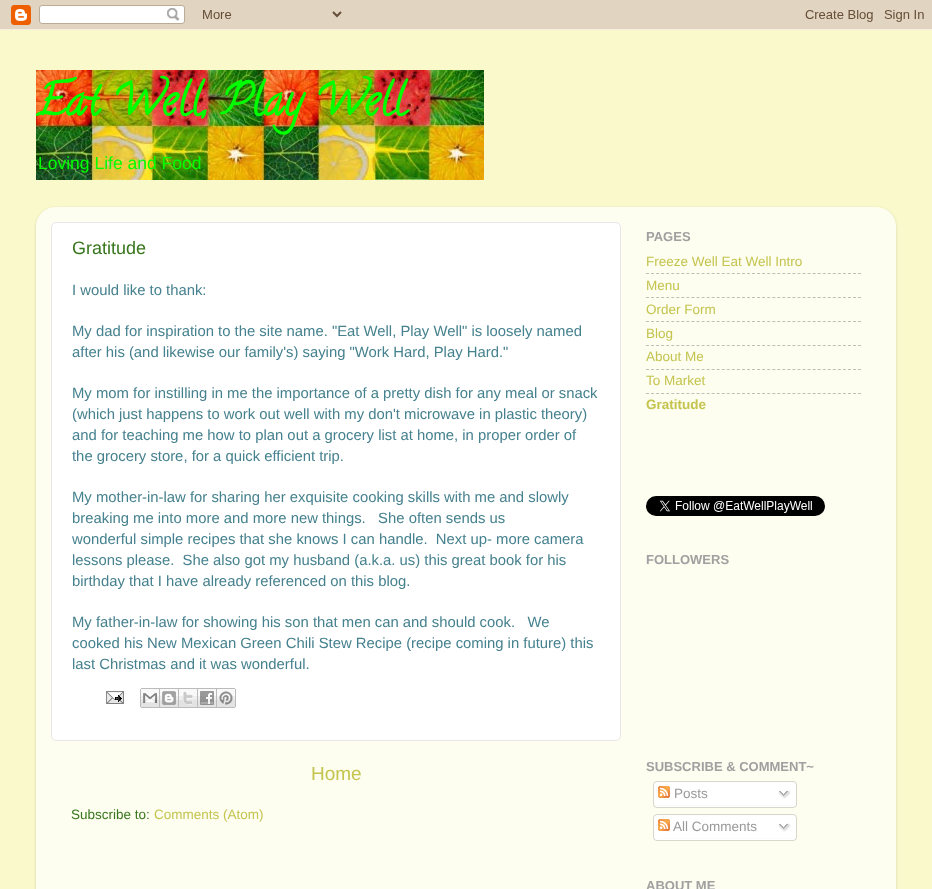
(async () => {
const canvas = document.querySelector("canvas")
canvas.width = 932
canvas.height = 889
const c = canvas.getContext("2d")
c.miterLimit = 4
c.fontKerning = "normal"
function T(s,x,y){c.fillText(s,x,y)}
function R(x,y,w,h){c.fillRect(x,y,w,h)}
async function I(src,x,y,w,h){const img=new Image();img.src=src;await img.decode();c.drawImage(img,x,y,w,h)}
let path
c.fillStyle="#f9f9cc"
R(0,0,932,889)
await I("1.png",0,0,932,30)
await I("2.png",36,70,448,110)
c.font="bold 44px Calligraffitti"
c.fillStyle="#0f0"
T("Eat Well, Play Well",36,114)
c.font="17.5px Liberation Sans"
T("Loving Life and Food",38,169)
c.save()
path = new Path2D("M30 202h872v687h-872zm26 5h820c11 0 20 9 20 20v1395h-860v-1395c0-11 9-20 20-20z")
c.clip(path,"evenodd")
c.fillStyle="#00000026"
c.filter="blur(1.5px)"
c.beginPath()
c.roundRect(36,208,860,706,20)
c.fill()
c.filter="none"
c.restore()
await I("3.png",36,207,860,682)
c.fillStyle="#fff"
c.beginPath()
c.roundRect(51.5,222.5,569,518,4.5)
c.fill()
c.strokeStyle="#e7e7e7"
c.stroke()
c.font="18px Liberation Sans"
c.fillStyle="#38761d"
T("Gratitude",72,254)
c.font="14.85px Liberation Sans"
c.fillStyle="#45818e"
T("I would like to thank:",72,295)
T("My dad for inspiration to the site name. \"Eat Well, Play Well\" is loosely named",72,336)
T("after his (and likewise our family's) saying \"Work Hard, Play Hard.\"",72,357)
T("My mom for instilling in me the importance of a pretty dish for any meal or snack",72,398)
T("(which just happens to work out well with my don't microwave in plastic theory)",72,419)
T("and for teaching me how to plan out a grocery list at home, in proper order of",72,440)
T("the grocery store, for a quick efficient trip.",72,461)
T("My mother-in-law for sharing her exquisite cooking skills with me and slowly",72,502)
T("breaking me into more and more new things.   She often sends us",72,523)
T("wonderful simple recipes that she knows I can handle.  Next up- more camera",72,544)
T("lessons please.  She also got my husband (a.k.a. us) this great book for his",72,565)
T("birthday that I have already referenced on this blog.",72,586)
T("My father-in-law for showing his son that men can and should cook.   We",72,627)
T("cooked his New Mexican Green Chili Stew Recipe (recipe coming in future) this",72,648)
T("last Christmas and it was wonderful.",72,669)
await I("4.png",106,691,18,13)
await I("5.png",140,688,20,20)
await I("6.png",160,688,19,20)
await I("7.png",179,688,19,20)
await I("8.png",198,688,19,20)
await I("9.png",217,688,19,20)
c.font="19px Liberation Sans"
c.fillStyle="#c4c44f"
T("Home",311,780)
c.font="13.5px Liberation Sans"
c.fillStyle="#38761d"
T("Subscribe to:",71,819)
c.fillStyle="#c4c44f"
T("Comments (Atom)",154,819)
c.font="bold 13px Liberation Sans"
c.fillStyle="#a0a0a0"
T("PAGES",646,241)
c.font="13.5px Liberation Sans"
c.fillStyle="#c4c44f"
T("Freeze Well Eat Well Intro",646,266)
path = new Path2D("M646 273.5h215")
c.strokeStyle="#bfbfb8"
c.setLineDash([3,2.05])
c.stroke(path)
T("Menu",646,290)
path = new Path2D("M646 297.5h215")
c.stroke(path)
T("Order Form",646,314)
path = new Path2D("M646 321.5h215")
c.stroke(path)
T("Blog",646,338)
path = new Path2D("M646 345.5h215")
c.stroke(path)
T("About Me",646,361)
path = new Path2D("M646 369.5h215")
c.stroke(path)
T("To Market",646,385)
path = new Path2D("M646 393.5h215")
c.stroke(path)
c.font="bold 13.5px Liberation Sans"
T("Gratitude",646,409)
await I("10.png",646,496,179,20)
c.font="bold 13px Liberation Sans"
c.fillStyle="#a0a0a0"
T("FOLLOWERS",646,564)
T("SUBSCRIBE & COMMENT~",646,771)
await I("11.png",653,781,144,24)
await I("12.png",658,786,12,12)
c.font="13.5px Liberation Sans"
c.fillStyle="#999"
T("Posts",674,798)
await I("13.png",778,790,13,9)
await I("14.png",653,805,144,3)
await I("11.png",653,814,144,24)
await I("12.png",658,819,12,12)
T("All Comments",673,831)
await I("13.png",778,823,13,9)
await I("14.png",653,838,144,3)
c.font="bold 13px Liberation Sans"
c.fillStyle="#a0a0a0"
T("ABOUT ME",646,890)
})()
